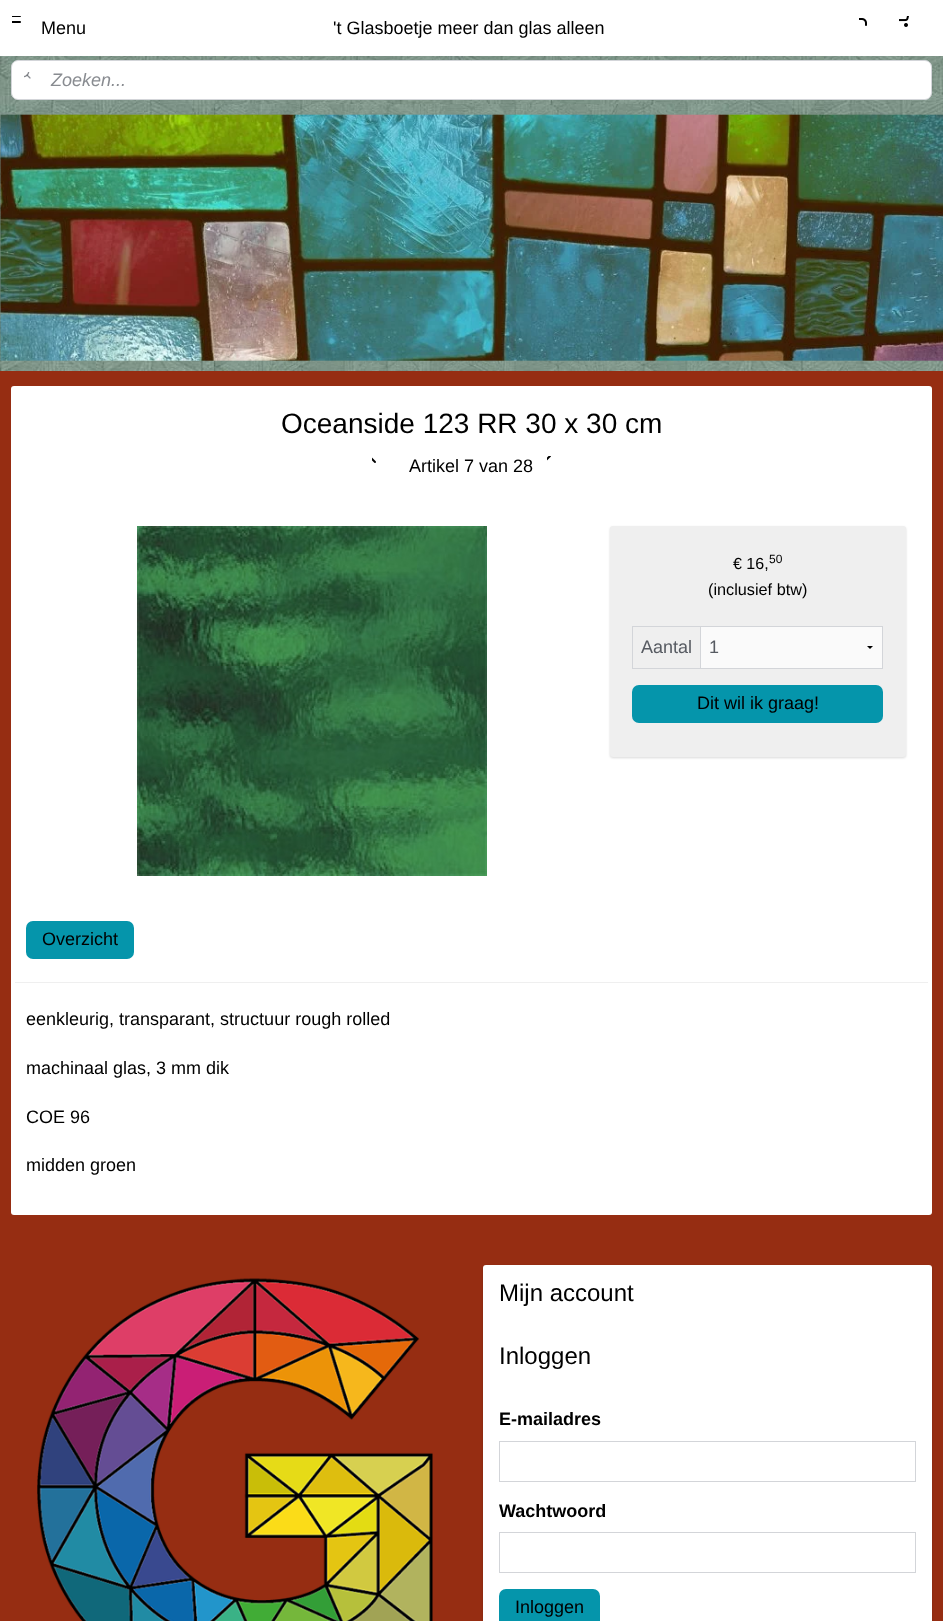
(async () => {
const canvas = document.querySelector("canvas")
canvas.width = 943
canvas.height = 1621
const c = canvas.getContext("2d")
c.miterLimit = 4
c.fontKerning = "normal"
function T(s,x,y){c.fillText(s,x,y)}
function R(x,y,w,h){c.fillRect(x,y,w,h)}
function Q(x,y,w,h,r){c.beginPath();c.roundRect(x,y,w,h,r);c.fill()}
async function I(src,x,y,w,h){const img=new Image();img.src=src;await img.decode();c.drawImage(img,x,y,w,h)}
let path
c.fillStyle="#fff"
R(0,0,943,1621)
await I("1.png",12,16,9,7)
c.font="18px Liberation Sans"
c.fillStyle="#000"
T("Menu",41,34)
T("'t Glasboetje meer dan glas alleen",333,34)
await I("2.png",859,18,8,8)
await I("3.png",899,16,10,11)
await I("4.png",0,56,943,315)
c.fillStyle="#fff"
c.beginPath()
c.roundRect(11.5,60.5,920,39,6.5)
c.fill()
c.strokeStyle="#d3d5d9"
c.stroke()
await I("5.png",24,72,7,7)
c.font="italic 18px Liberation Sans"
c.fillStyle="#898c91"
T("Zoeken...",51,86)
await I("6.png",214,104,515,267)
await I("7.png",0,114,943,247)
c.fillStyle="#962d12"
R(0,371,943,1250)
c.fillStyle="#fff"
Q(11,386,921,829,3)
c.font="28px Liberation Sans"
c.fillStyle="#000"
T("Oceanside 123 RR 30 x 30 cm",281,433)
await I("8.png",372,457,4,6)
c.font="18px Liberation Sans"
T("Artikel 7 van 28",409,472)
await I("9.png",547,456,4,5)
await I("10.png",137,526,350,350)
c.fillStyle="#00000026"
c.filter="blur(1px)"
c.beginPath()
c.roundRect(610,527,296,231,3)
c.fill()
c.filter="none"
c.fillStyle="#efefef"
Q(610,526,296,231,3)
c.font="16px Liberation Sans"
c.fillStyle="#000"
T("€ 16,",733,569)
c.font="12px Liberation Sans"
T("50",769,563)
c.font="16.25px Liberation Sans"
T("(inclusief btw)",708,595)
c.fillStyle="#d3d5d9"
R(700,626,1,42)
R(632,626,251,1)
R(882,626,1,43)
R(632,668,251,1)
R(632,626,1,43)
c.font="18px Liberation Sans"
c.fillStyle="#575b62"
T("Aantal",641,653)
c.fillStyle="#fafafa"
R(701,627,181,41)
c.fillStyle="#000"
path = new Path2D("M873 646l-3 3l-3-3z")
c.fill(path)
c.fillStyle="#575b62"
T("1",709,653)
c.fillStyle="#0595ab"
Q(632,685,251,38,7)
c.fillStyle="#000"
T("Dit wil ik graag!",697,709)
c.fillStyle="#0595ab"
Q(26,921,108,38,7)
c.fillStyle="#000"
T("Overzicht",42,945)
c.fillStyle="#efefef"
R(15,982,913,1)
c.fillStyle="#000"
T("eenkleurig, transparant, structuur rough rolled",26,1025)
T("machinaal glas, 3 mm dik",26,1074)
T("COE 96",26,1123)
T("midden groen",26,1171)
await I("11.png",37,1278,396,343)
c.fillStyle="#00000026"
c.filter="blur(1px)"
c.beginPath()
c.roundRect(483,1266,449,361,3)
c.fill()
c.filter="none"
c.fillStyle="#fff"
Q(483,1265,449,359,3)
c.font="24px Liberation Sans"
c.fillStyle="#000"
T("Mijn account",499,1301)
T("Inloggen",499,1364)
c.font="bold 18px Liberation Sans"
T("E-mailadres",499,1425)
c.strokeRect(499.5,1441.5,416,40)
T("Wachtwoord",499,1517)
c.strokeRect(499.5,1532.5,416,40)
c.fillStyle="#0595ab"
Q(499,1589,101,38,7)
c.font="18px Liberation Sans"
c.fillStyle="#000"
T("Inloggen",515,1613)
})()
